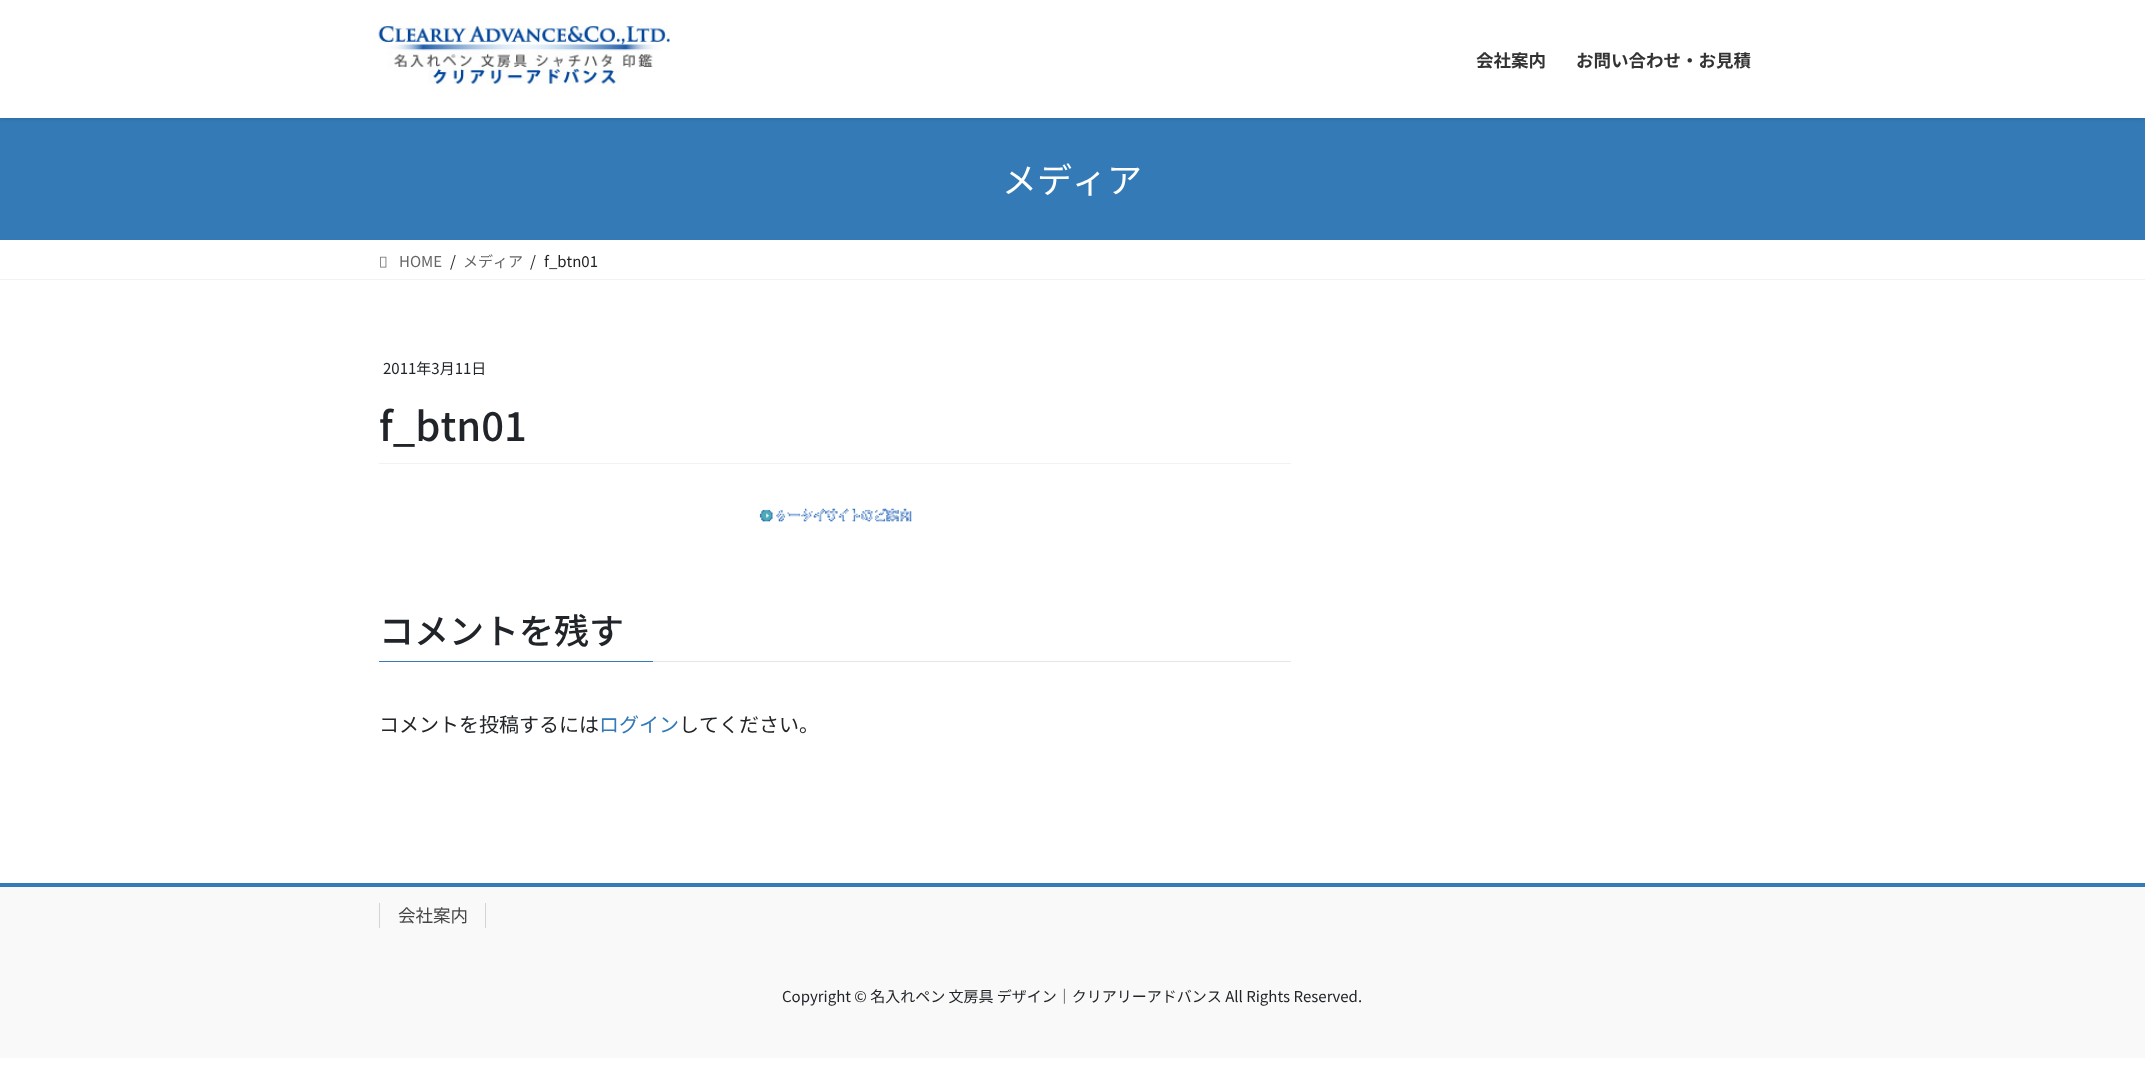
(async () => {
const canvas = document.querySelector("canvas")
canvas.width = 2145
canvas.height = 1070
const c = canvas.getContext("2d")
c.miterLimit = 4
c.fontKerning = "none"
function T(s,x,y){c.fillText(s,x,y)}
function R(x,y,w,h){c.fillRect(x,y,w,h)}
async function I(src,x,y,w,h){const img=new Image();img.src=src;await img.decode();c.drawImage(img,x,y,w,h)}
c.fillStyle="#fff"
R(0,0,2145,1070)
c.fillStyle="#337ab7"
R(0,118,2145,122)
c.fillStyle="#0000001a"
c.filter="blur(2px)"
c.beginPath()
c.rect(0,1,2145,118)
c.fill()
c.filter="none"
c.fillStyle="#fff"
R(0,0,2145,118)
await I("1.png",378,26,292,59)
c.font="bold 17.5px Noto Sans JP"
c.fillStyle="#333"
T("会社案内",1476,67)
T("お問い合わせ・お見積",1576,67)
c.font="35px Noto Sans JP"
c.fillStyle="#fff"
T("メディア",1002,193)
c.fillStyle="#f2f2f2"
R(0,279,2145,1)
await I("2.png",380,256,7,12)
c.font="15px Noto Sans JP"
c.fillStyle="#666"
T("HOME",399,267)
c.fillStyle="#212529"
T("/",450,267)
c.fillStyle="#666"
T("メディア",463,267)
c.fillStyle="#212529"
T("/",530,267)
T("f_btn01",544,267)
c.fillStyle="#f2f2f2"
R(379,463,912,1)
c.fillStyle="#212529"
T("2011年3月11日",383,374)
c.font="500 40px Noto Sans JP"
T("f_btn01",379,441)
await I("3.png",759,508,153,14)
c.fillStyle="#e6e6e6"
R(653,661,638,1)
c.font="500 35px Noto Sans JP"
c.fillStyle="#212529"
T("コメントを残す",379,644)
c.fillStyle="#337ab7"
R(379,661,274,1)
c.font="20px Noto Sans JP"
c.fillStyle="#212529"
T("コメントを投稿するには",379,732)
c.fillStyle="#337ab7"
T("ログイン",599,732)
c.fillStyle="#212529"
T("してください。",679,732)
c.fillStyle="#f9f9f9"
R(0,887,2145,171)
c.fillStyle="#337ab7"
R(0,883,2145,4)
c.font="17.5px Noto Sans JP"
c.fillStyle="#464646"
T("会社案内",398,922)
c.fillStyle="#d4d4d4"
R(485,903,1,25)
R(379,903,1,25)
c.font="15px Noto Sans JP"
c.fillStyle="#212529"
T("Copyright © 名入れペン 文房具 デザイン｜クリアリーアドバンス All Rights Reserved.",782,1002)
})()
